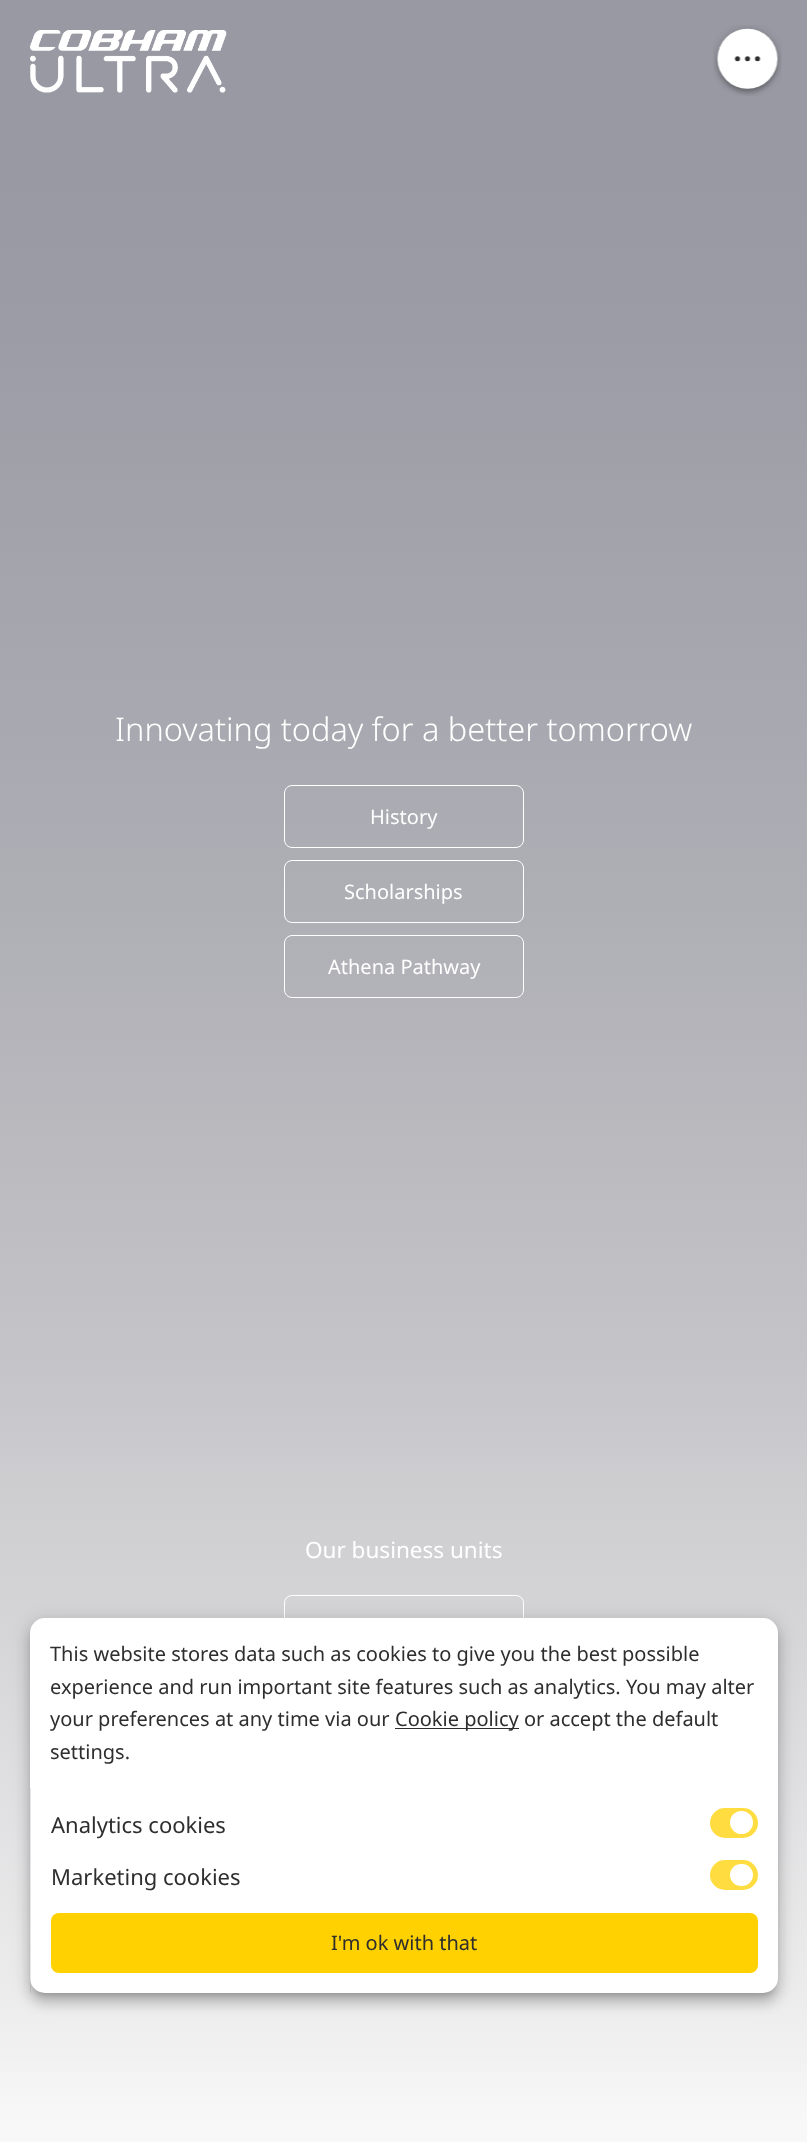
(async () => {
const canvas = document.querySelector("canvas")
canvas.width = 807
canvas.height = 2142
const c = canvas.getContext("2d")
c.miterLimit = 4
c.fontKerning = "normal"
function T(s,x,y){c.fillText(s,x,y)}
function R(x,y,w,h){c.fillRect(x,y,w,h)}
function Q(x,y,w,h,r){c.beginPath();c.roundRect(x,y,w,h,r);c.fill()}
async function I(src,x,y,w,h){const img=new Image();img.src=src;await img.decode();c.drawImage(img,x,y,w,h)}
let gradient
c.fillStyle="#fff"
R(0,0,807,2142)
gradient = c.createLinearGradient(404,0,404,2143)
gradient.addColorStop(0,"#9999a3")
gradient.addColorStop(.07,"#9999a3")
gradient.addColorStop(.14,"#9b9ba5")
gradient.addColorStop(.21,"#a0a0a9")
gradient.addColorStop(.28,"#a5a5ad")
gradient.addColorStop(.35,"#a9a9b1")
gradient.addColorStop(.42,"#aeaeb5")
gradient.addColorStop(.49,"#b5b5bb")
gradient.addColorStop(.56,"#bcbcc1")
gradient.addColorStop(.63,"#c3c3c8")
gradient.addColorStop(.69,"#cdcdd0")
gradient.addColorStop(.75,"#d4d4d7")
gradient.addColorStop(.8,"#dbdbdd")
gradient.addColorStop(.85,"#e2e2e4")
gradient.addColorStop(.89,"#e7e7e8")
gradient.addColorStop(.93,"#ececed")
gradient.addColorStop(.96,"#f1f1f1")
gradient.addColorStop(.98,"#f6f6f6")
gradient.addColorStop(.99,"#f8f8f8")
gradient.addColorStop(1,"#f8f8f8")
c.fillStyle = gradient
R(0,0,807,2142)
await I("1.png",30,30,197,63)
await I("2.png",713,25,69,71)
c.font="300 32.5px Noto Sans"
c.fillStyle="#fff"
T("Innovating today for a better tomorrow",115,741)
c.beginPath()
c.roundRect(284.5,785.5,239,62,7.5)
c.strokeStyle="#fff"
c.stroke()
c.font="20px Noto Sans"
T("History",370,824)
c.beginPath()
c.roundRect(284.5,860.5,239,62,7.5)
c.stroke()
T("Scholarships",344,899)
c.beginPath()
c.roundRect(284.5,935.5,239,62,7.5)
c.stroke()
T("Athena Pathway",328,974)
c.font="22.5px Noto Sans"
T("Our business units",305,1558)
c.beginPath()
c.roundRect(284.5,1595.5,239,89,7.5)
c.stroke()
c.fillStyle="#0000001f"
c.filter="blur(9px)"
c.beginPath()
c.roundRect(28,1619,752,380,18)
c.fill()
c.filter="none"
c.fillStyle="#00000024"
c.filter="blur(6px)"
c.beginPath()
c.roundRect(29,1626,750,378,16)
c.fill()
c.filter="none"
c.fillStyle="#00000033"
c.filter="blur(3px)"
c.beginPath()
c.roundRect(34,1628,740,367,11)
c.fill()
c.filter="none"
c.fillStyle="#fff"
Q(30,1618,748,375,15)
c.font="20px Noto Sans"
c.fillStyle="#2e2e2e"
T("This website stores data such as cookies to give you the best possible",50,1661)
T("experience and run important site features such as analytics. You may alter",50,1694)
T("your preferences at any time via our",50,1726)
R(395,1728,124,1)
T("Cookie policy or accept the default",395,1726)
T("settings.",50,1759)
c.fillStyle="#7676802e"
R(30,1788,1,205)
c.font="22px Noto Sans"
c.fillStyle="#2e2e2e"
T("Analytics cookies",51,1833)
c.fillStyle="#ffdd40"
Q(710,1808,48,30,15)
c.fillStyle="#fff"
c.beginPath()
c.arc(741.5,1822.5,11.5,0,7)
c.fill()
c.fillStyle="#2e2e2e"
T("Marketing cookies",51,1885)
c.fillStyle="#ffdd40"
Q(710,1860,48,30,15)
c.fillStyle="#fff"
Q(730,1864,23,22,11)
c.fillStyle="#ffd100"
Q(51,1913,707,60,8)
c.font="20px Noto Sans"
c.fillStyle="#2e2e2e"
T("I'm ok with that",331,1950)
})()
